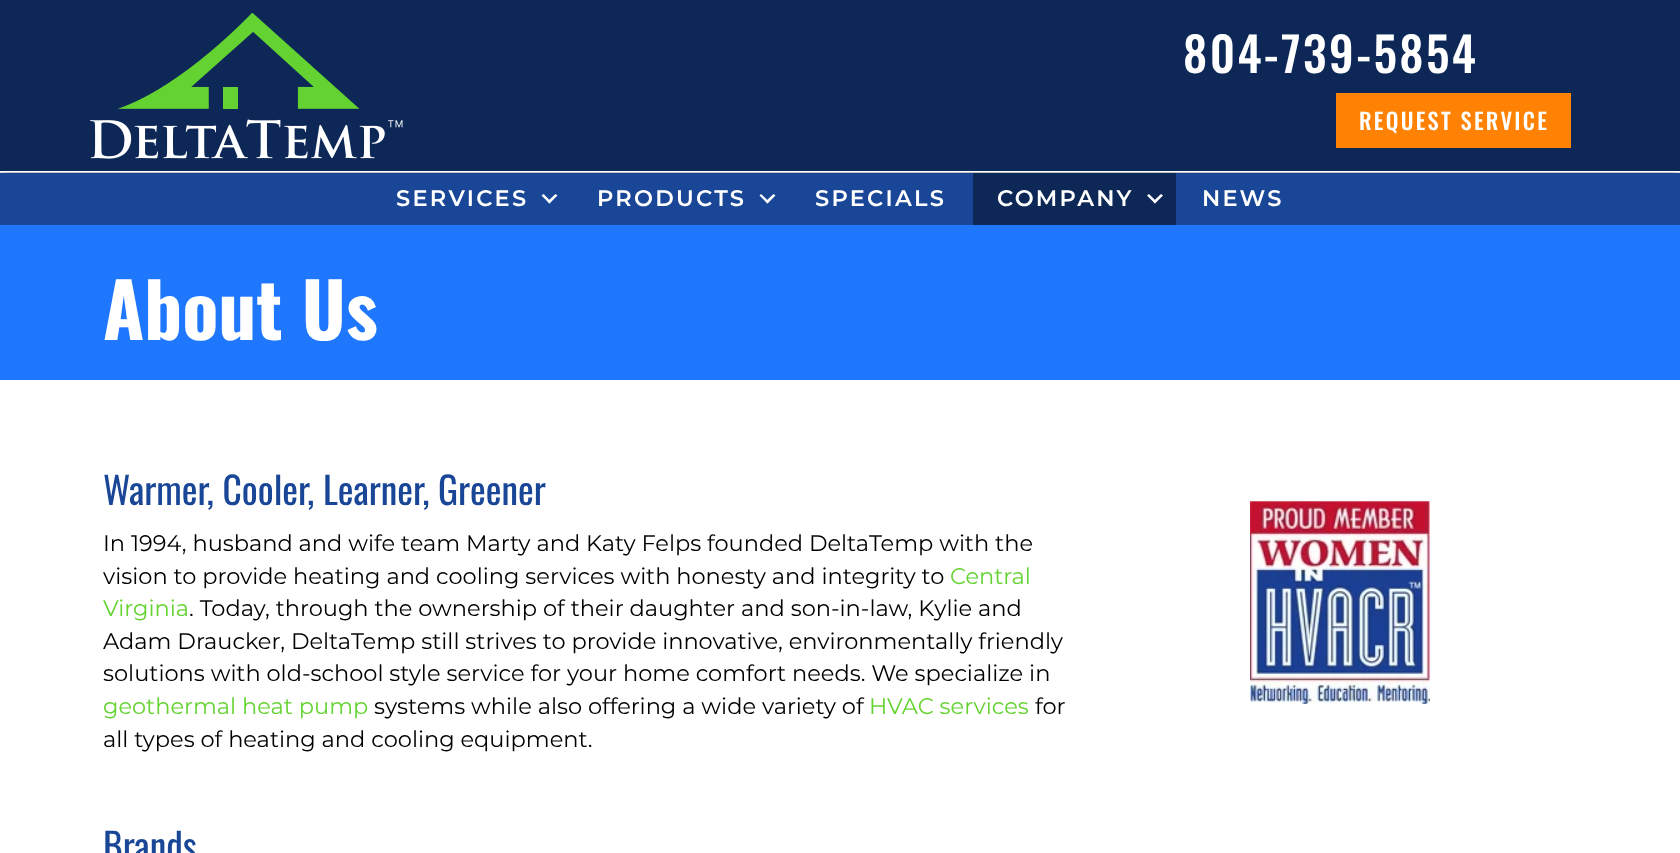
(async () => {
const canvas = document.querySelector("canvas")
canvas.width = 1680
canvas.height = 853
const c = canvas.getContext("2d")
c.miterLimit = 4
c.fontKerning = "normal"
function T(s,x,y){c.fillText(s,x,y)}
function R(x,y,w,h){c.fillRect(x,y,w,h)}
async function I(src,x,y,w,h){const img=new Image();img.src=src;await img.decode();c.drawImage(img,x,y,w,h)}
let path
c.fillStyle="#fff"
R(0,0,1680,853)
c.fillStyle="#0000004d"
c.filter="blur(6px)"
c.beginPath()
c.rect(0,6,1680,172)
c.fill()
c.filter="none"
c.fillStyle="#0d2857"
R(0,0,1680,171)
await I("1.png",90,13,313,146)
c.letterSpacing="2.4px"
c.font="500 47.5px Oswald"
c.fillStyle="#fff"
T("804-739-5854",1183,73)
c.fillStyle="#ff8205"
R(1336,93,235,55)
c.letterSpacing="2.25px"
c.font="500 22.5px Oswald"
c.fillStyle="#fff"
T("REQUEST SERVICE",1359,130)
c.fillStyle="#194696"
R(0,173,1680,52)
c.fillStyle="#fff"
R(0,171,1680,1)
c.font="600 22.5px Montserrat"
T("SERVICES",396,206)
path = new Path2D("M555.5 194l2 1.5l-8 8l-2-2z")
c.fill(path)
path = new Path2D("M543.5 194l7.5 7.5l-1.5 2l-8-8z")
c.fill(path)
T("PRODUCTS",597,206)
path = new Path2D("M773.5 194l2 1.5l-8 8l-2-2z")
c.fill(path)
path = new Path2D("M761 194l8 7.5l-1.5 2l-8-8z")
c.fill(path)
T("SPECIALS",815,206)
c.fillStyle="#0d2857"
R(973,173,203,52)
c.fillStyle="#fff"
T("COMPANY",997,206)
path = new Path2D("M1161 194l2 1.5l-8 8l-2-2z")
c.fill(path)
path = new Path2D("M1149 194l7.5 7.5l-1.5 2l-8-8z")
c.fill(path)
T("NEWS",1202,206)
c.fillStyle="#1e77fd"
R(0,225,1680,155)
c.letterSpacing="0px"
c.font="bold 75px Oswald"
c.fillStyle="#fff"
T("About Us",103,340)
c.font="37.5px Oswald"
c.fillStyle="#194696"
T("Warmer, Cooler, Learner, Greener",103,505)
c.font="22.5px Montserrat"
c.fillStyle="#000"
T("In 1994, husband and wife team Marty and Katy Felps founded DeltaTemp with the",103,551)
T("vision to provide heating and cooling services with honesty and integrity to",103,584)
c.fillStyle="#64d331"
T("Central",950,584)
T("Virginia",103,616)
c.fillStyle="#000"
T(". Today, through the ownership of their daughter and son-in-law, Kylie and",189,616)
T("Adam Draucker, DeltaTemp still strives to provide innovative, environmentally friendly",103,649)
T("solutions with old-school style service for your home comfort needs. We specialize in",103,681)
c.fillStyle="#64d331"
T("geothermal heat pump",103,714)
c.fillStyle="#000"
T("systems while also offering a wide variety of",374,714)
c.fillStyle="#64d331"
T("HVAC services",869,714)
c.fillStyle="#000"
T("for",1035,714)
T("all types of heating and cooling equipment.",103,747)
await I("2.png",1250,501,180,203)
c.font="37.5px Oswald"
c.fillStyle="#194696"
T("Brands",103,861)
})()
